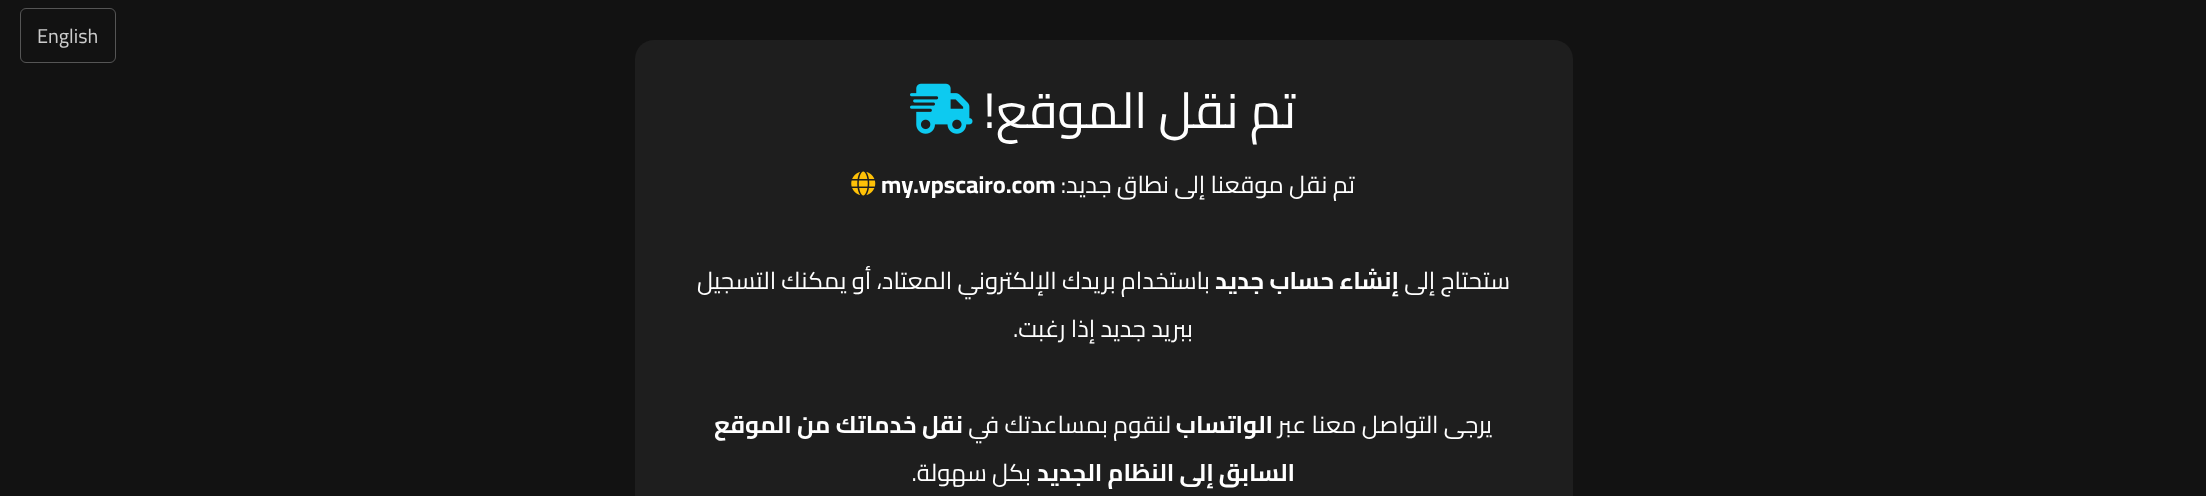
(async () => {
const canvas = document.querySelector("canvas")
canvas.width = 2206
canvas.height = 496
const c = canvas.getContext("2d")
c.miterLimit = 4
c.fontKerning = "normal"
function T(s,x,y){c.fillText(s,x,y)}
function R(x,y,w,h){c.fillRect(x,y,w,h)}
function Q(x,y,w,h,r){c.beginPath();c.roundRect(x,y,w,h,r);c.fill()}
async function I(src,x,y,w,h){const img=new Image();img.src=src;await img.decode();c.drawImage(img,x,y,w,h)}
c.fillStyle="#121212"
R(0,0,2206,496)
c.beginPath()
c.roundRect(20.5,8.5,95,54,5.5)
c.strokeStyle="#555"
c.stroke()
c.font="20px Cairo"
c.fillStyle="#ccc"
T("English",37,43)
c.fillStyle="#1e1e1e"
Q(635,40,938,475,19)
c.direction="rtl"
c.font="50px Cairo"
c.fillStyle="#fff"
T("تم نقل الموقع!",1296,128)
await I("1.png",910,83,63,51)
c.font="24px Cairo"
T("تم نقل موقعنا إلى نطاق جديد:",1355,193)
c.direction="ltr"
c.font="bold 24px Cairo"
T("my.vpscairo.com",881,193)
await I("2.png",851,171,25,25)
c.direction="rtl"
c.font="24px Cairo"
T("ستحتاج إلى",1510,289)
c.font="bold 24px Cairo"
T("إنشاء حساب جديد",1399,289)
c.font="24px Cairo"
T("باستخدام بريدك الإلكتروني المعتاد، أو يمكنك التسجيل",1210,289)
T("ببريد جديد إذا رغبت.",1193,337)
T("يرجى التواصل معنا عبر",1492,433)
c.font="bold 24px Cairo"
T("الواتساب",1273,433)
c.font="24px Cairo"
T("لنقوم بمساعدتك في",1171,433)
c.font="bold 24px Cairo"
T("نقل خدماتك من الموقع",963,433)
T("السابق إلى النظام الجديد",1295,481)
c.font="24px Cairo"
T("بكل سهولة.",1031,481)
})()
